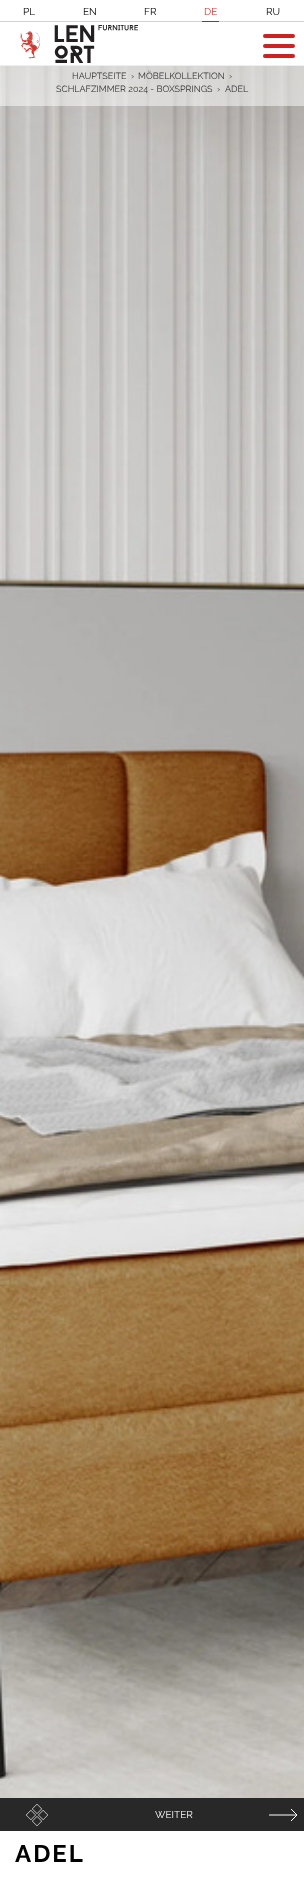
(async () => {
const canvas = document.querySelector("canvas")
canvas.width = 304
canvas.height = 1877
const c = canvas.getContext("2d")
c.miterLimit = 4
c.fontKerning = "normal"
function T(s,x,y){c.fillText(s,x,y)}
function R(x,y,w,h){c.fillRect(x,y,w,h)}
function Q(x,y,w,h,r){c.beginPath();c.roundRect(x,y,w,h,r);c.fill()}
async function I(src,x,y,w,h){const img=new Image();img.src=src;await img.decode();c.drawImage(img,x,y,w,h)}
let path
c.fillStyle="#fff"
R(0,0,304,1877)
c.fillStyle="#eee"
R(0,65,304,1)
c.fillStyle="#d2d2d2"
R(0,21,304,1)
c.font="10px Raleway"
c.fillStyle="#000"
T("PL",23,15)
T("EN",83,15)
T("FR",144,15)
c.fillStyle="#e11111"
R(202,21,17,1)
c.fillStyle="#d0362f"
T("DE",204,15)
c.fillStyle="#000"
T("RU",266,15)
await I("1.png",20,25,118,38)
c.fillStyle="#cf2323"
Q(263,44,32,4,2)
c.fillStyle="#cd2222"
Q(263,34,32,4,2)
Q(263,54,32,4,2)
await I("2.png",0,66,304,1732)
c.fillStyle="#ffffff80"
R(0,66,304,40)
c.font="9px Raleway"
c.fillStyle="#333"
T("HAUPTSEITE",72,79)
T("›",131,79)
T("MÖBELKOLLEKTION",138,79)
T("›",229,79)
T("SCHLAFZIMMER 2024 - BOXSPRINGS",56,92)
T("›",217,92)
T("ADEL",225,92)
c.strokeStyle="#282828"
c.strokeRect(.5,1798.5,74,32)
c.save()
c.beginPath()
c.rect(1,1799,73,31)
c.clip()
c.fillStyle="#282828"
path = new Path2D("M-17 1796h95l13 37h-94z")
c.fill(path)
c.restore()
await I("3.png",26,1804,22,22)
c.strokeRect(75.5,1798.5,228,32)
c.save()
c.beginPath()
c.rect(76,1799,227,31)
c.clip()
c.fillStyle="#282828"
path = new Path2D("M35 1796h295l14 37h-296z")
c.fill(path)
c.restore()
c.font="10px Raleway"
c.fillStyle="#fff"
T("WEITER",155,1818)
await I("4.png",269,1809,28,12)
c.letterSpacing="2px"
c.font="bold 24px Raleway"
c.fillStyle="#000"
T("ADEL",15,1862)
})()
